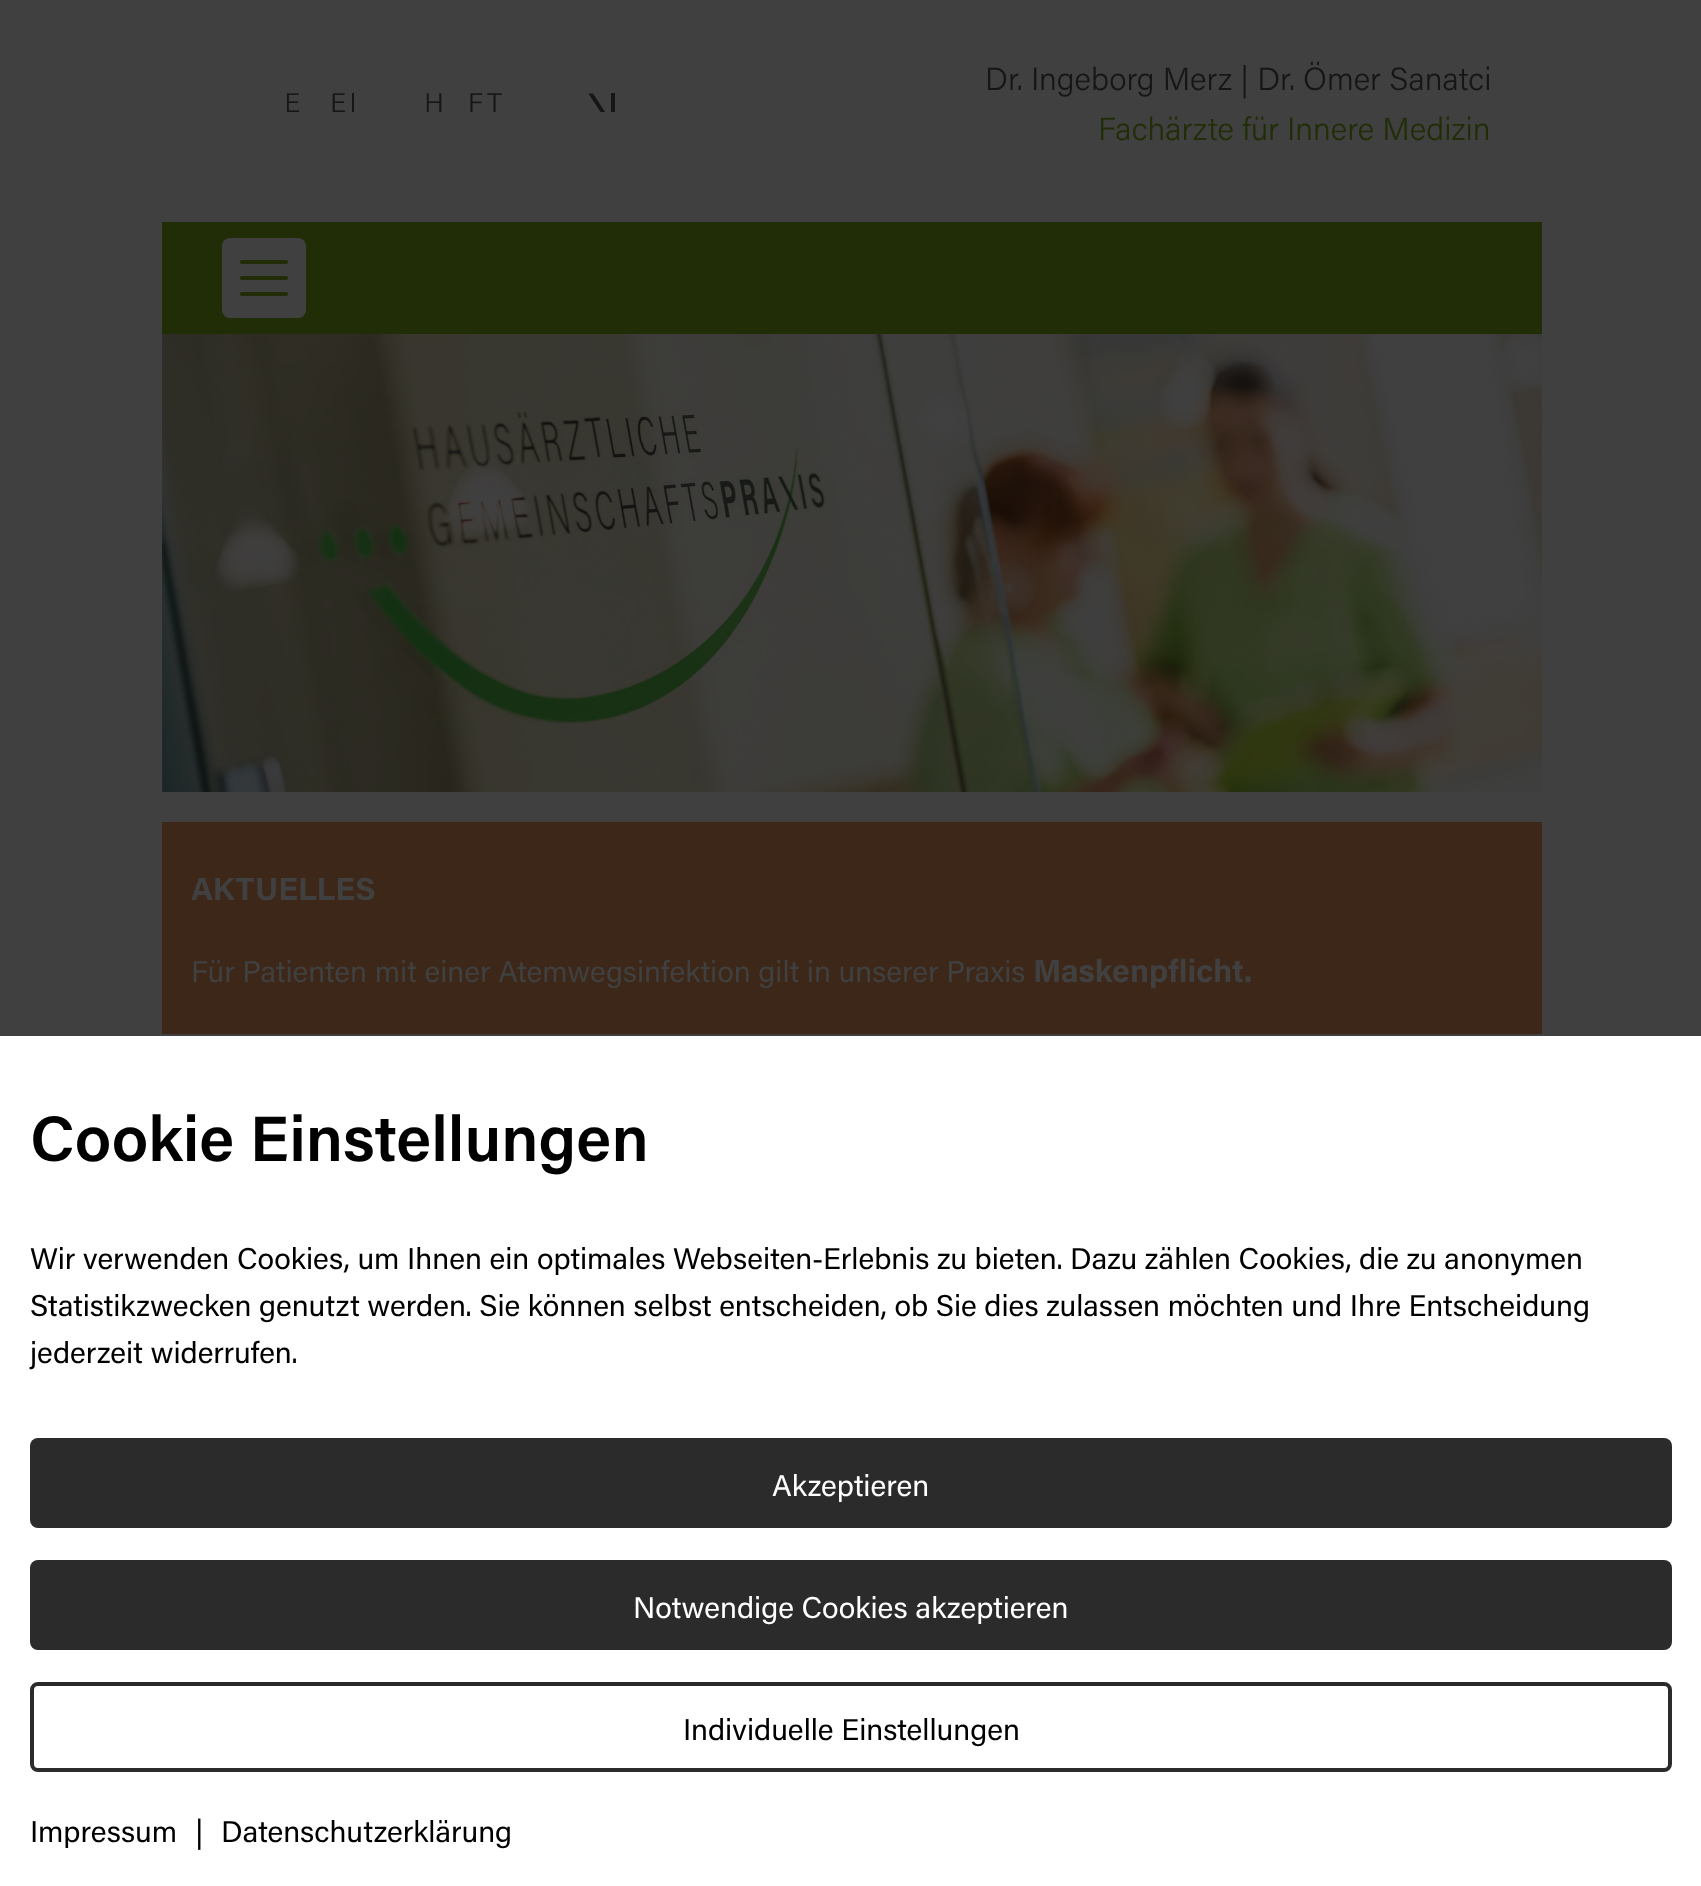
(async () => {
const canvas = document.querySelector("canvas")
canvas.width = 1701
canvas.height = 1886
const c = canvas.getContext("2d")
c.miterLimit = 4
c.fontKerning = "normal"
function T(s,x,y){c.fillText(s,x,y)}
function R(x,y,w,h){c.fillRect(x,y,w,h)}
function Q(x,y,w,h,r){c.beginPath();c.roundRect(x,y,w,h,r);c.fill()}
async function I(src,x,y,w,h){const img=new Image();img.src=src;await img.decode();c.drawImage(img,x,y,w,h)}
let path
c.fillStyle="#404040"
R(0,0,1701,1886)
await I("1.png",286,93,329,19)
c.font="300 32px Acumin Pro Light"
c.fillStyle="#161615"
T("Dr. Ingeborg Merz | Dr. Ömer Sanatci",985,90)
c.fillStyle="#212d07"
T("Fachärzte für Innere Medizin",1098,140)
R(162,222,1380,112)
c.fillStyle="#404040"
Q(222,238,84,80,8)
path = new Path2D("M242 262h44m-44 16h44m-44 16h44")
c.strokeStyle="#212d07"
c.lineWidth=4
c.lineCap="round"
c.stroke(path)
await I("2.png",162,334,1380,458)
c.fillStyle="#3d2718"
R(162,822,1380,212)
c.font="bold 32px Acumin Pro"
c.fillStyle="#404040"
T("AKTUELLES",191,900)
c.font="30px Acumin Pro"
T("Für Patienten mit einer Atemwegsinfektion gilt in unserer Praxis",191,982)
c.font="bold 32px Acumin Pro"
T("Maskenpflicht.",1033,982)
c.fillStyle="#fff"
R(0,1036,1701,850)
c.font="600 64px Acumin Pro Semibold"
c.fillStyle="#000"
T("Cookie Einstellungen",30,1161)
c.font="30px Acumin Pro"
T("Wir verwenden Cookies, um Ihnen ein optimales Webseiten-Erlebnis zu bieten. Dazu zählen Cookies, die zu anonymen",30,1269)
T("Statistikzwecken genutzt werden. Sie können selbst entscheiden, ob Sie dies zulassen möchten und Ihre Entscheidung",30,1316)
T("jederzeit widerrufen.",30,1363)
c.fillStyle="#2b2b2b"
Q(30,1438,1642,90,8)
c.fillStyle="#fff"
T("Akzeptieren",772,1496)
c.fillStyle="#2b2b2b"
Q(30,1560,1642,90,8)
c.fillStyle="#fff"
T("Notwendige Cookies akzeptieren",633,1618)
c.beginPath()
c.roundRect(32,1684,1638,86,6)
c.strokeStyle="#2b2b2b"
c.stroke()
c.fillStyle="#000"
T("Individuelle Einstellungen",683,1740)
T("Impressum",30,1842)
T("|",195,1842)
T("Datenschutzerklärung",221,1842)
})()
